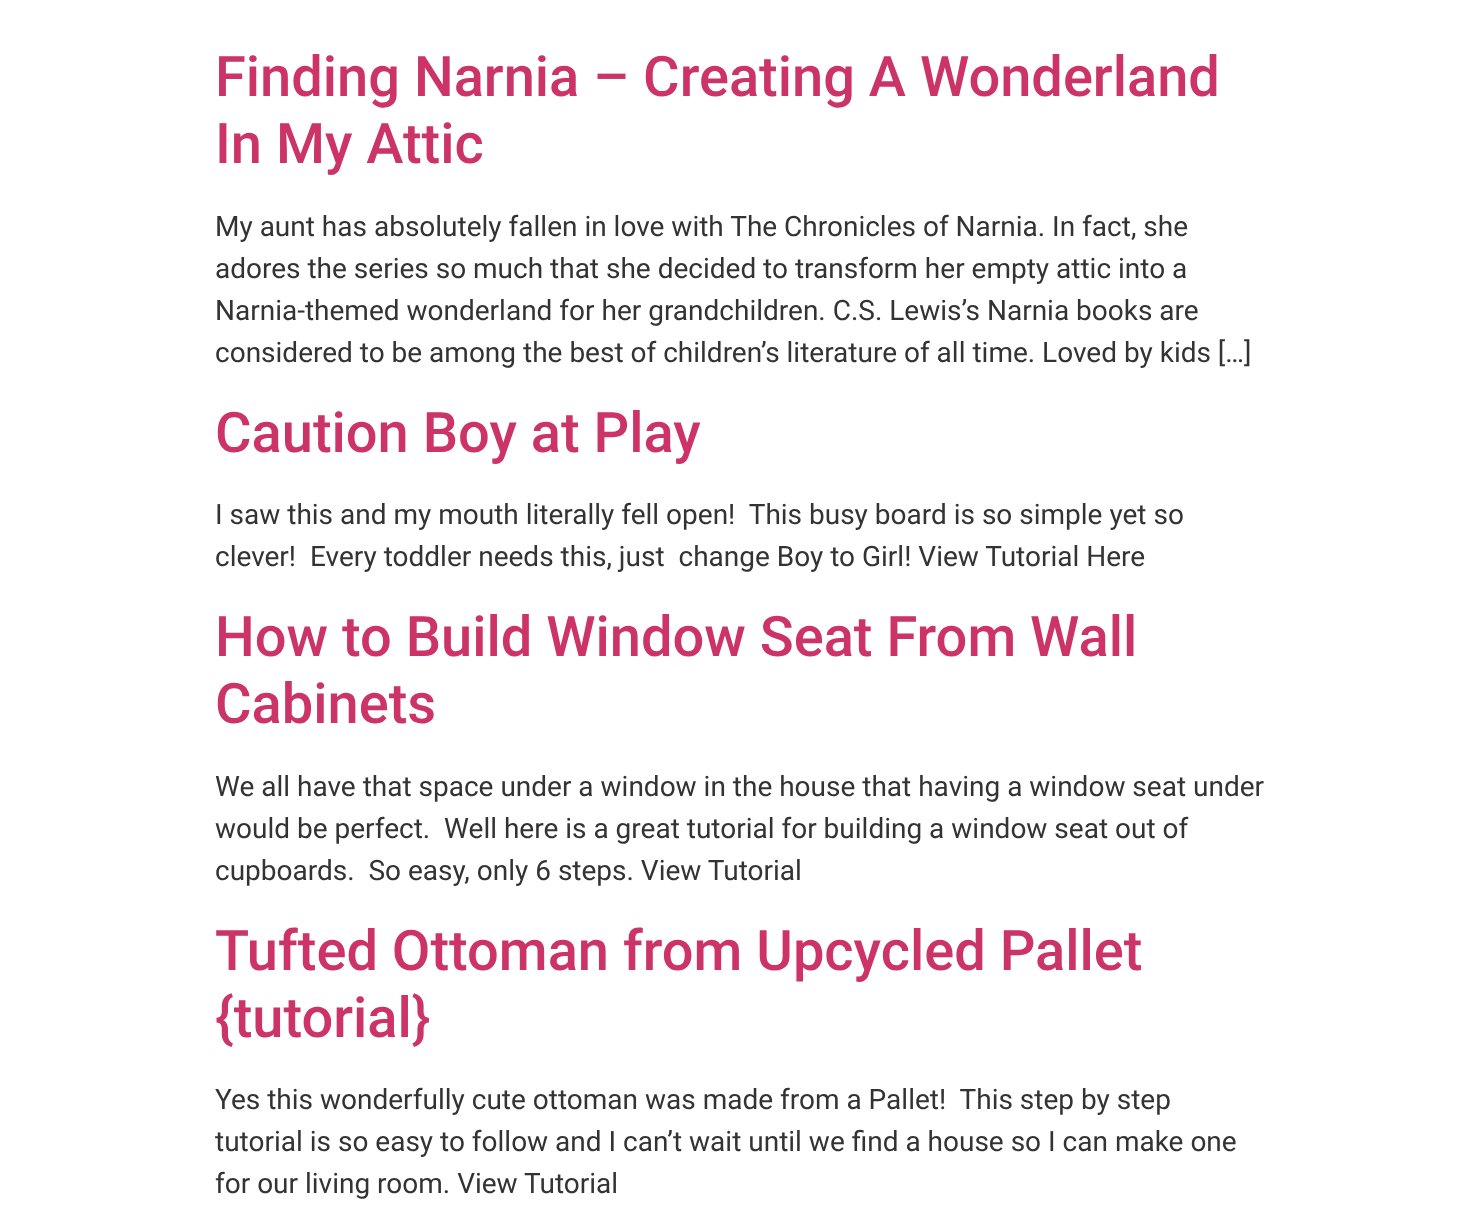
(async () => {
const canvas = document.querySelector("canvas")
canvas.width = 1479
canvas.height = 1223
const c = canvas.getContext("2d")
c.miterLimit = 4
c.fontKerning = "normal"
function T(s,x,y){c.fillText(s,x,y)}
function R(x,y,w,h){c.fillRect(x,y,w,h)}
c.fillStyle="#fff"
R(0,0,1479,1223)
c.font="500 56px Roboto"
c.fillStyle="#c36"
T("Finding Narnia – Creating A Wonderland",215,96)
T("In My Attic",215,163)
c.font="28px Roboto"
c.fillStyle="#333"
T("My aunt has absolutely fallen in love with The Chronicles of Narnia. In fact, she",215,236)
T("adores the series so much that she decided to transform her empty attic into a",215,278)
T("Narnia-themed wonderland for her grandchildren. C.S. Lewis’s Narnia books are",215,320)
T("considered to be among the best of children’s literature of all time. Loved by kids […]",215,362)
c.font="500 56px Roboto"
c.fillStyle="#c36"
T("Caution Boy at Play",215,452)
c.font="28px Roboto"
c.fillStyle="#333"
T("I saw this and my mouth literally fell open!  This busy board is so simple yet so",215,524)
T("clever!  Every toddler needs this, just  change Boy to Girl! View Tutorial Here",215,566)
c.font="500 56px Roboto"
c.fillStyle="#c36"
T("How to Build Window Seat From Wall",215,656)
T("Cabinets",215,723)
c.font="28px Roboto"
c.fillStyle="#333"
T("We all have that space under a window in the house that having a window seat under",215,796)
T("would be perfect.  Well here is a great tutorial for building a window seat out of",215,838)
T("cupboards.  So easy, only 6 steps. View Tutorial",215,880)
c.font="500 56px Roboto"
c.fillStyle="#c36"
T("Tufted Ottoman from Upcycled Pallet",215,970)
T("{tutorial}",215,1037)
c.font="28px Roboto"
c.fillStyle="#333"
T("Yes this wonderfully cute ottoman was made from a Pallet!  This step by step",215,1109)
T("tutorial is so easy to follow and I can’t wait until we find a house so I can make one",215,1151)
T("for our living room. View Tutorial",215,1193)
})()
